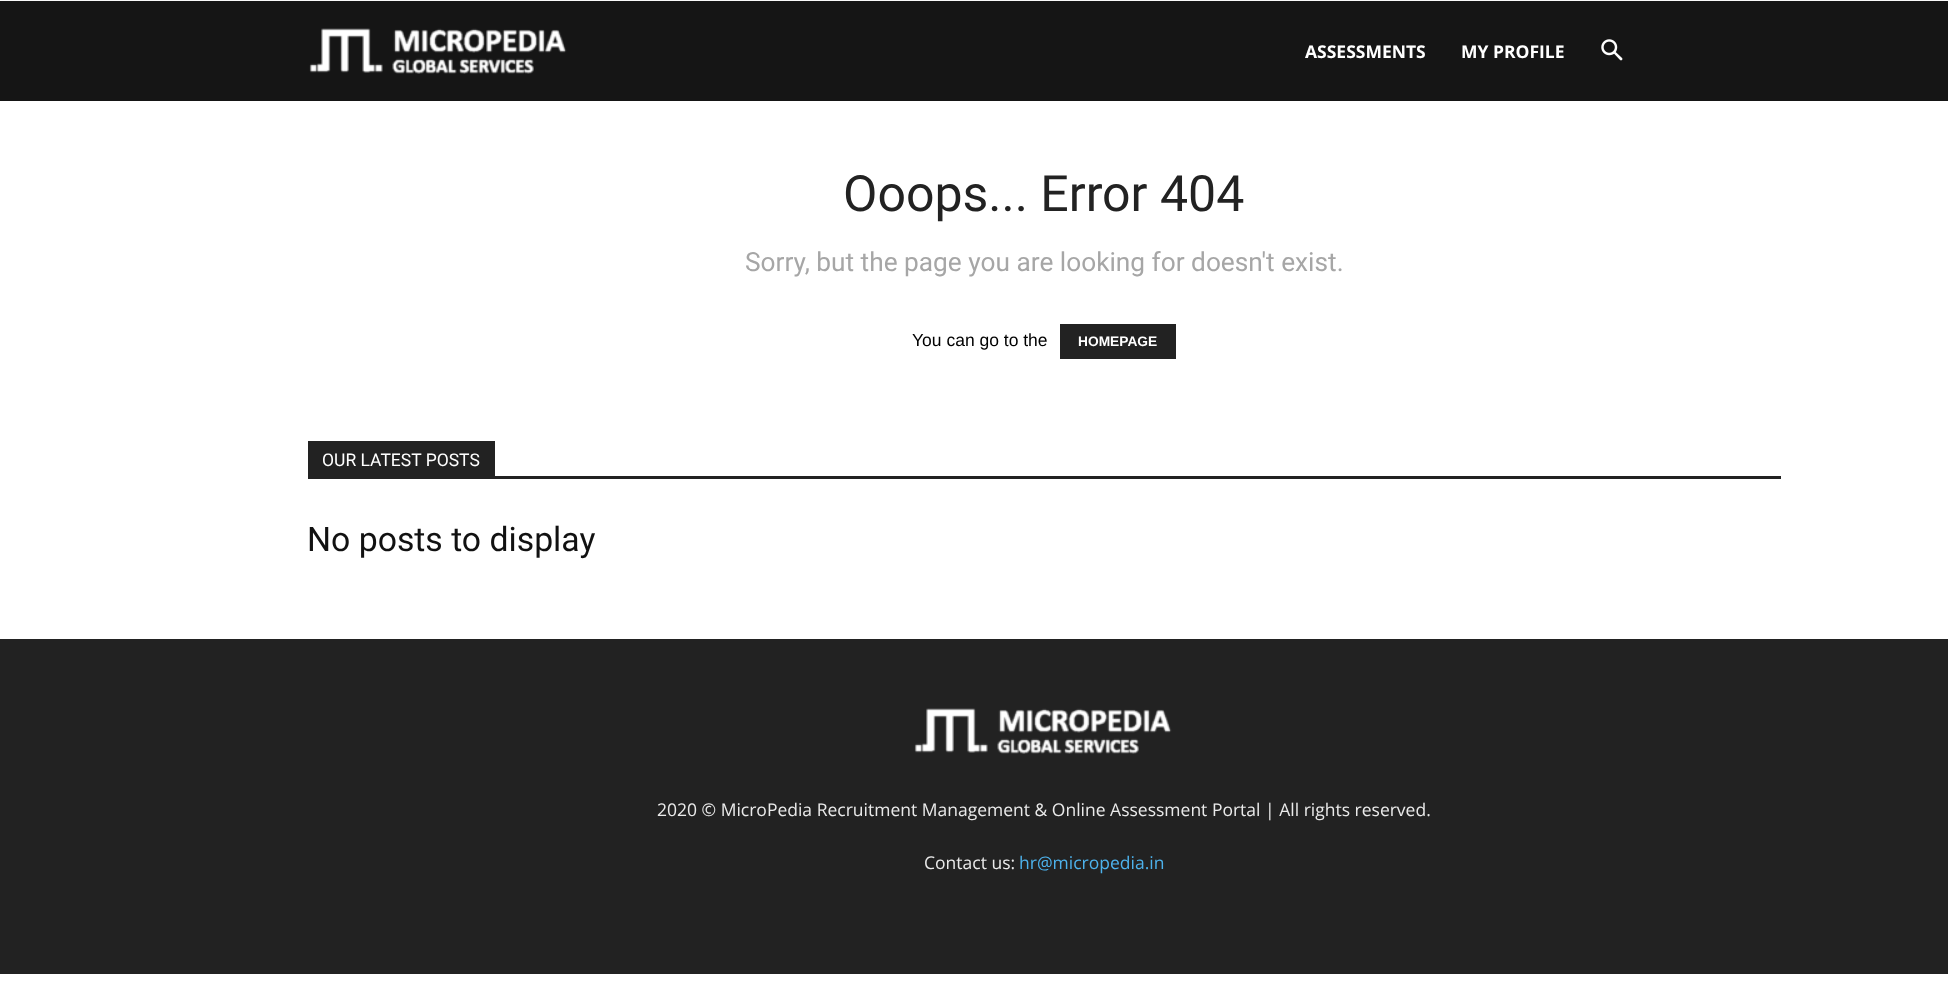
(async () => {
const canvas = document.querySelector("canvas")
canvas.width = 1948
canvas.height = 993
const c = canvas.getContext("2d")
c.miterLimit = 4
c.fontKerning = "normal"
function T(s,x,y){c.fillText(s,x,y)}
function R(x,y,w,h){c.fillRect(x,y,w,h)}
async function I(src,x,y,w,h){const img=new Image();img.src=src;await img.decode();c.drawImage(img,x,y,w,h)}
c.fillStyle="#fff"
R(0,0,1948,993)
c.fillStyle="#f9f9f9"
R(0,0,1948,1)
c.fillStyle="#151515"
R(0,1,1948,100)
await I("1.png",309,28,258,46)
c.font="bold 17.5px Open Sans"
c.fillStyle="#fff"
T("ASSESSMENTS",1305,58)
T("MY PROFILE",1461,58)
await I("2.png",1601,39,22,22)
c.font="50px Roboto"
c.fillStyle="#222"
T("Ooops... Error 404",843,211)
c.font="26.25px Roboto"
c.fillStyle="#a6a6a6"
T("Sorry, but the page you are looking for doesn't exist.",745,271)
c.font="17.5px Liberation Sans"
c.fillStyle="#000"
T("You can go to the",912,346)
c.fillStyle="#222"
R(1060,324,116,35)
c.font="bold 13.75px Liberation Sans"
c.fillStyle="#fff"
T("HOMEPAGE",1078,346)
c.fillStyle="#222"
R(308,476,1473,3)
R(308,441,187,35)
c.font="17.5px Roboto"
c.fillStyle="#fff"
T("OUR LATEST POSTS",322,466)
c.font="33.75px Roboto"
c.fillStyle="#111"
T("No posts to display",307,551)
c.fillStyle="#222"
R(0,639,1948,335)
await I("3.png",914,708,258,46)
c.font="17.5px Open Sans"
c.fillStyle="#eaeaea"
T("2020 © MicroPedia Recruitment Management & Online Assessment Portal | All rights reserved.",657,816)
T("Contact us:",924,869)
c.fillStyle="#4db2ec"
T("hr@micropedia.in",1019,869)
})()
